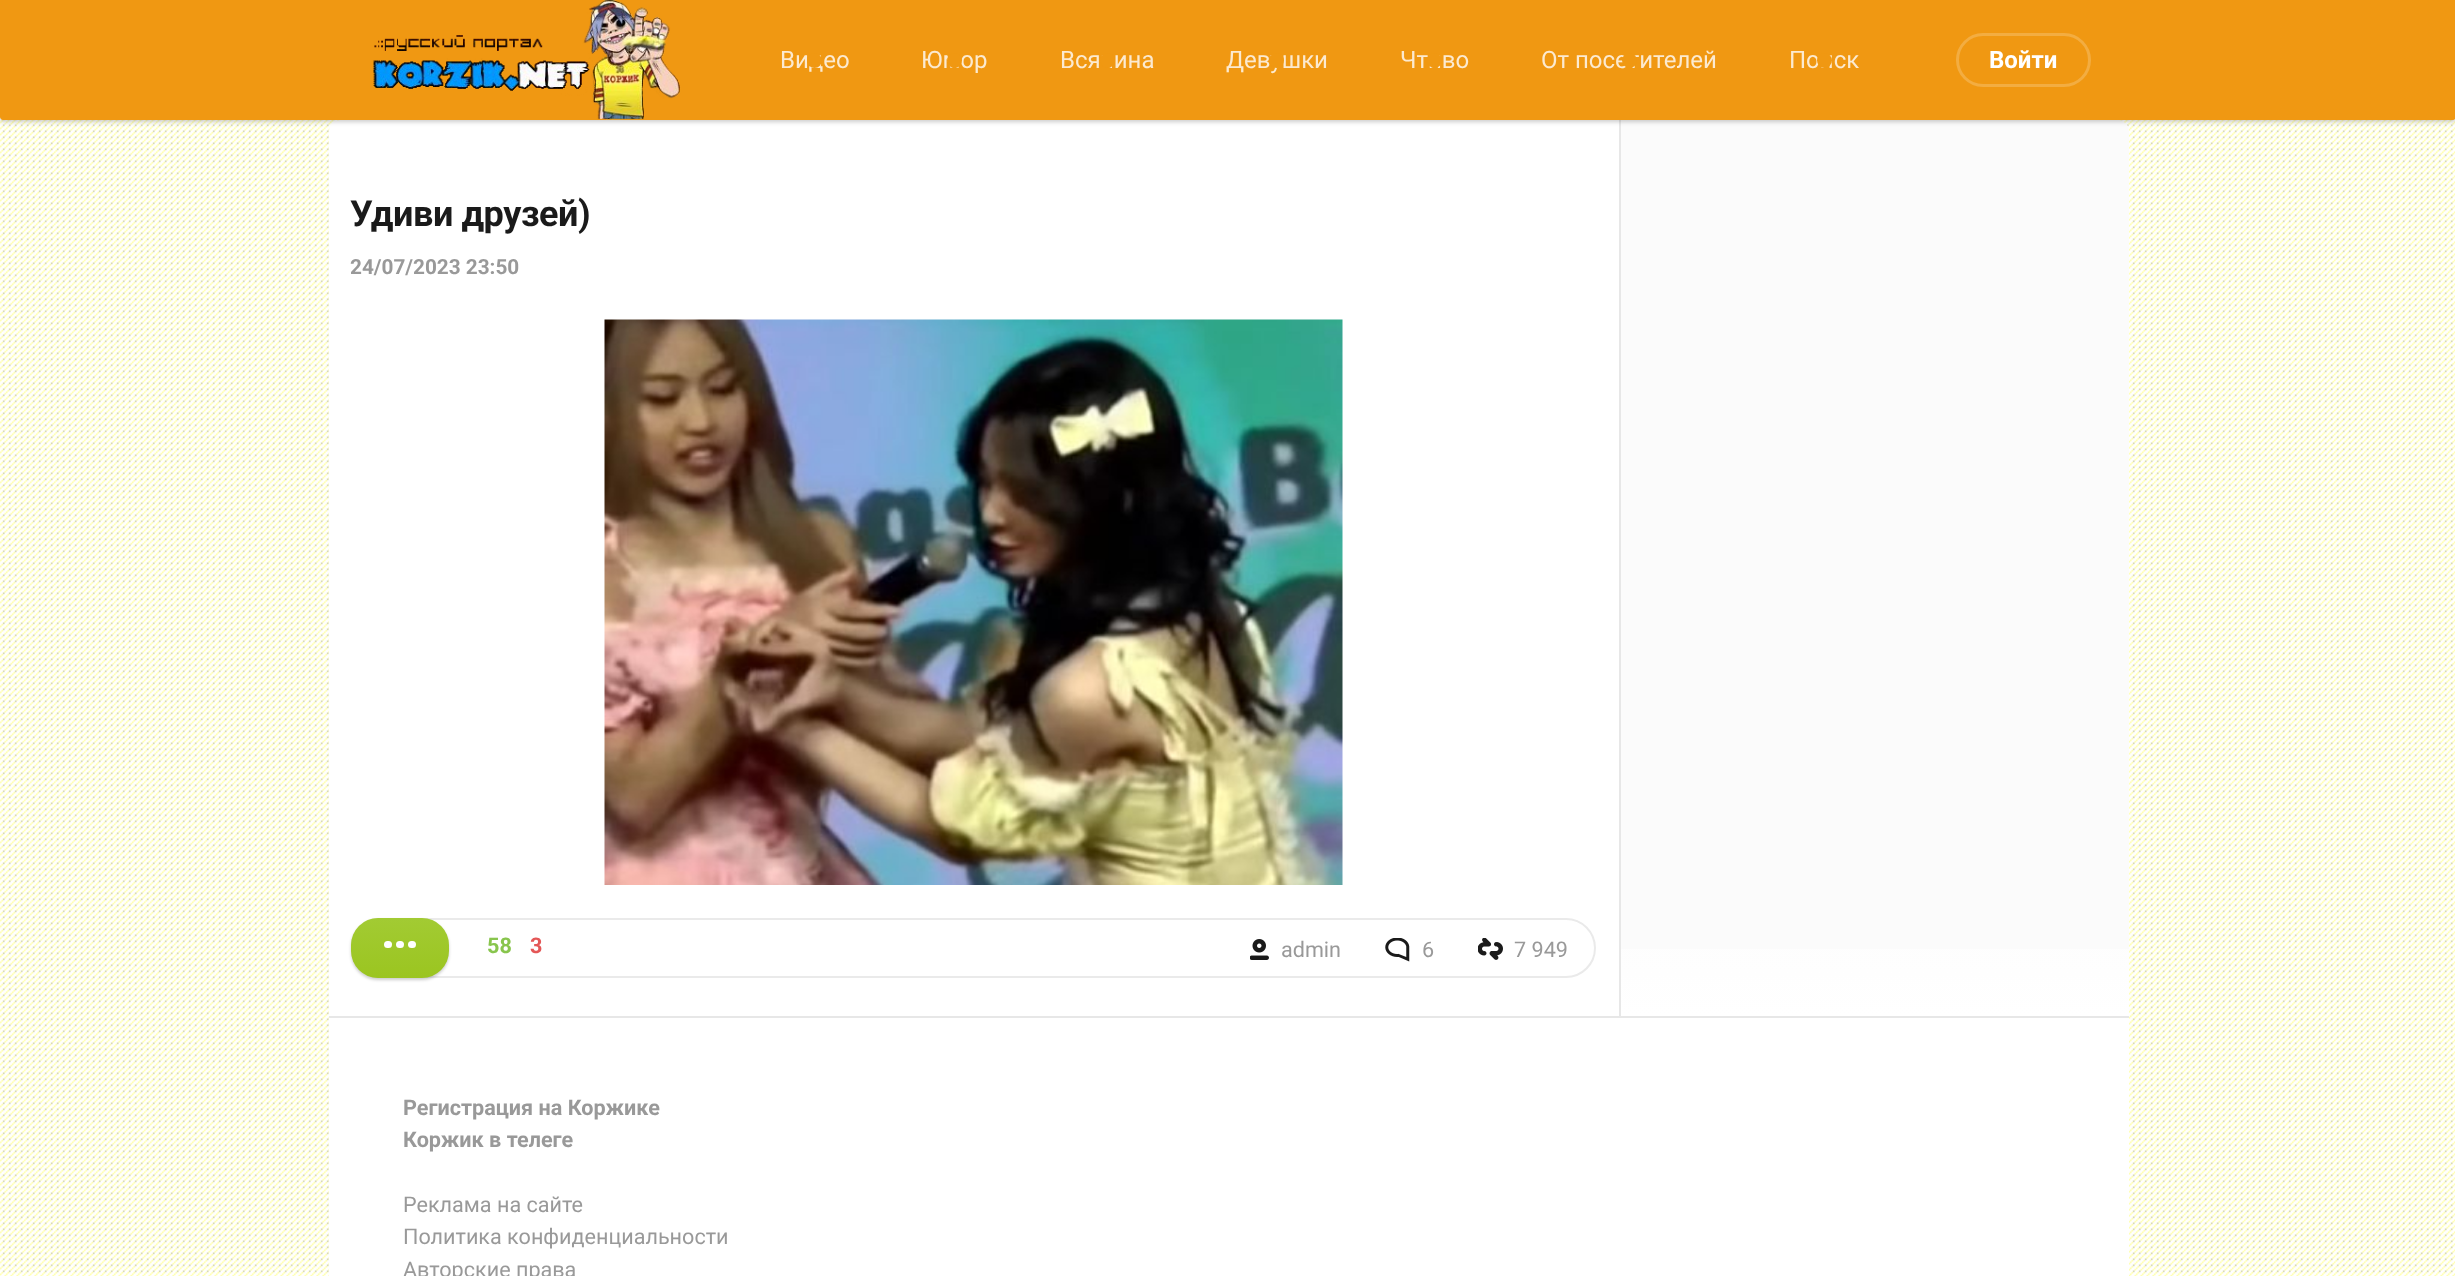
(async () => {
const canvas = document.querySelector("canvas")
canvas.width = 2455
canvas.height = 1276
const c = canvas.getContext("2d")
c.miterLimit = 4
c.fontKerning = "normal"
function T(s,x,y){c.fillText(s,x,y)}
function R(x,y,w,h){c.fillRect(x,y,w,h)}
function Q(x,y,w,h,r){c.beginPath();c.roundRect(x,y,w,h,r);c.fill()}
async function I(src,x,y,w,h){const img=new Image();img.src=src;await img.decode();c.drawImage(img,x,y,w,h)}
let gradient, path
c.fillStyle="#fff"
R(0,0,2455,1276)
await I("1.png",0,117,2455,1159)
Q(329,120,1800,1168,12)
c.fillStyle="#fbfbfb"
c.beginPath()
c.roundRect(1619,120,510,896,[0,12,0,0])
c.fill()
c.fillStyle="#e7e7e7"
R(1619,120,2,896)
c.fillStyle="#00000033"
c.filter="blur(2px)"
c.beginPath()
c.roundRect(0,2,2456,120,3)
c.fill()
c.filter="none"
c.fillStyle="#f09812"
path = new Path2D("M0 0h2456v117c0 1.5-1.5 3-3 3h-2450c-1.5 0-3-1.5-3-3z")
c.fill(path)
await I("2.png",373,0,308,120)
c.font="24px Roboto"
c.fillStyle="#fcead0"
T("Видео",780,68)
c.fillStyle="#f09812"
c.beginPath()
c.arc(814.5,60.5,7.5,0,7)
c.fill()
c.fillStyle="#fcead0"
T("Юмор",921,68)
c.fillStyle="#f09812"
c.beginPath()
c.arc(954.5,60.5,7.5,0,7)
c.fill()
c.fillStyle="#fcead0"
T("Всячина",1060,68)
c.fillStyle="#f09812"
c.beginPath()
c.arc(1107.5,60.5,7.5,0,7)
c.fill()
c.fillStyle="#fcead0"
T("Девушки",1226,68)
c.fillStyle="#f09812"
c.beginPath()
c.arc(1276.5,60.5,7.5,0,7)
c.fill()
c.fillStyle="#fcead0"
T("Чтиво",1400,68)
c.fillStyle="#f09812"
c.beginPath()
c.arc(1434.5,60.5,7.5,0,7)
c.fill()
c.fillStyle="#fcead0"
T("От посетителей",1541,68)
c.fillStyle="#f09812"
c.beginPath()
c.arc(1629.5,60.5,7.5,0,7)
c.fill()
c.fillStyle="#fcead0"
T("Поиск",1789,68)
c.fillStyle="#f09812"
c.beginPath()
c.arc(1824.5,60.5,7.5,0,7)
c.fill()
c.beginPath()
c.roundRect(1957.5,34.5,132,51,25.5)
c.strokeStyle="#f3ad41"
c.lineWidth=3
c.stroke()
c.font="bold 24px Roboto"
c.fillStyle="#fff"
T("Войти",1989,68)
c.letterSpacing="-0.4px"
c.font="bold 36px Roboto"
c.fillStyle="#1a1a1a"
T("Удиви друзей)",350,226)
c.letterSpacing="0px"
c.font="bold 20.75px Roboto"
c.fillStyle="#999"
T("24/07/2023 23:50",350,274)
await I("3.png",604,319,739,566)
c.beginPath()
c.roundRect(352,919,1243,58,29)
c.strokeStyle="#eaeaea"
c.lineWidth=2
c.stroke()
c.fillStyle="#00000033"
c.filter="blur(1.5px)"
c.beginPath()
c.roundRect(351,920,98,60,27)
c.fill()
c.filter="none"
gradient = c.createLinearGradient(400,918,400,978)
gradient.addColorStop(0,"#a2cb33")
gradient.addColorStop(1,"#9bc520")
c.fillStyle = gradient
Q(351,918,98,60,27)
c.fillStyle="#fff"
Q(384,941,8,7,3.5)
Q(396,941,8,7,3.5)
Q(408,941,8,7,3.5)
c.font="bold 21.6px Roboto"
c.fillStyle="#88c54d"
T("58",487,953)
c.fillStyle="#e45757"
T("3",530,953)
await I("4.png",1250,939,19,21)
c.font="21.6px Roboto"
c.fillStyle="#999"
T("admin",1281,957)
await I("5.png",1385,938,25,24)
T("6",1422,957)
await I("6.png",1478,938,25,22)
T("7 949",1514,957)
gradient = c.createLinearGradient(1874,837,1874,1016)
gradient.addColorStop(0,"#fbfbfb")
gradient.addColorStop(1,"#fff")
c.fillStyle = gradient
R(1621,949,508,67)
c.fillStyle="#e7e7e7"
R(329,1016,1800,2)
c.font="bold 21.6px Roboto"
c.fillStyle="#999"
T("Регистрация на Коржике",403,1115)
T("Коржик в телеге",403,1147)
c.font="21.6px Roboto"
T("Реклама на сайте",403,1212)
T("Политика конфиденциальности",403,1244)
T("Авторские права",403,1277)
})()
